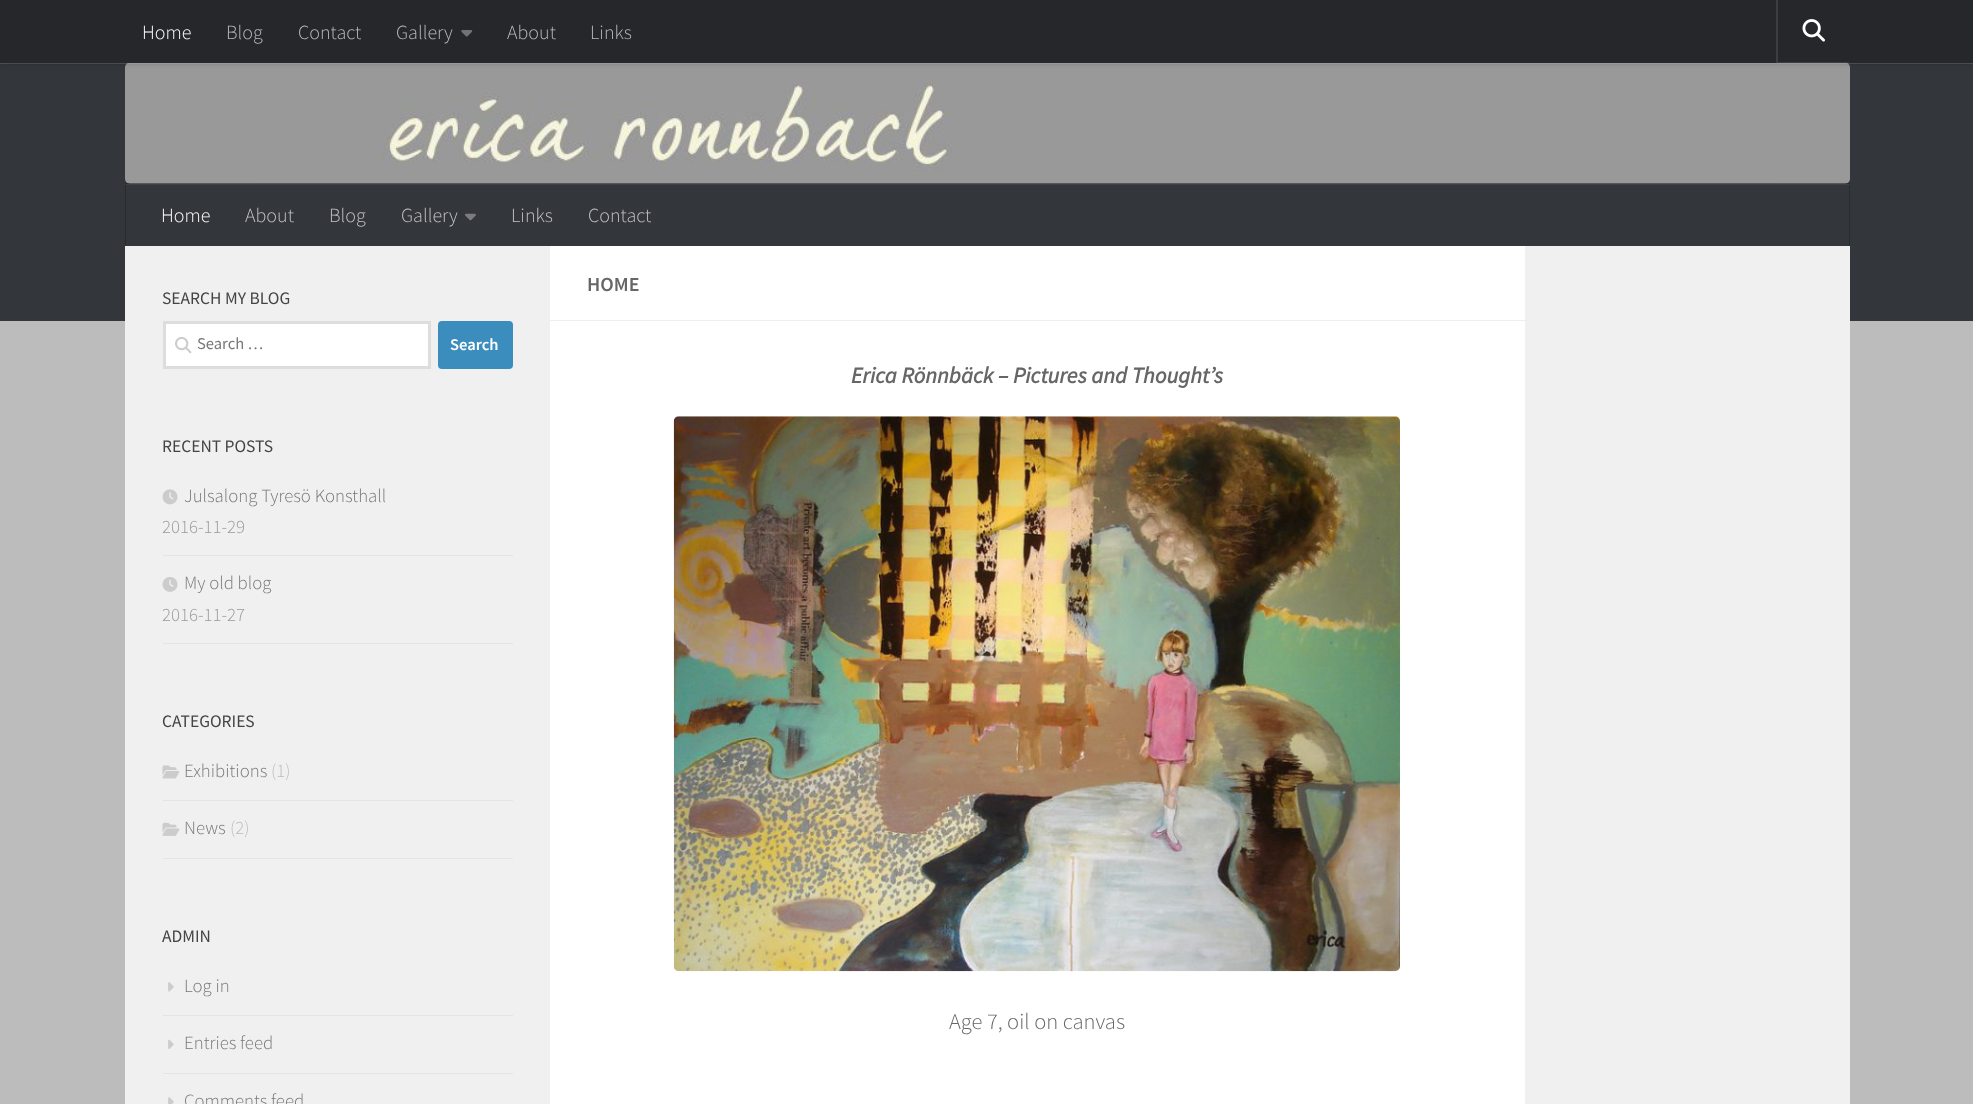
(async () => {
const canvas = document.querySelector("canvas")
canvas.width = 1973
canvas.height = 1104
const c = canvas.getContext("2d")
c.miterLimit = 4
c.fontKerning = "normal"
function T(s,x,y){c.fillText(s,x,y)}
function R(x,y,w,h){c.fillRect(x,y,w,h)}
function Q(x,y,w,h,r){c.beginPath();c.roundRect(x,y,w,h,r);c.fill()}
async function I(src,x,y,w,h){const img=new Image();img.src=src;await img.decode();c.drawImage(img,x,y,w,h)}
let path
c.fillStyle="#bcbcbc"
R(0,0,1973,1104)
c.fillStyle="#33363b"
R(0,63,1973,258)
c.fillStyle="#3d4045"
R(125,184,1725,1)
await I("3.png",125,63,1725,121)
c.fillStyle="#ffffff26"
path = new Path2D("M0 62v2h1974v-63v61z")
c.fill(path)
c.fillStyle="#00000033"
c.filter="blur(3px)"
c.beginPath()
c.rect(0,0,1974,63)
c.fill()
c.filter="none"
c.fillStyle="#26272b"
R(0,0,1973,63)
c.font="300 20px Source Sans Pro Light"
c.fillStyle="#fff"
T("Home",142,39)
c.fillStyle="#bbb"
T("Blog",226,39)
T("Contact",298,39)
T("Gallery",396,39)
await I("1.png",461,30,12,7)
T("About",507,39)
T("Links",590,39)
c.fillStyle="#3c3d40"
path = new Path2D("M1776 0v63h73v-1h-71v-62z")
c.fill(path)
await I("2.png",1802,19,23,23)
c.fillStyle="#00000033"
R(125,183,1725,1)
c.fillStyle="#292b2f"
R(1849,184,1,62)
c.fillStyle="#343639"
R(1849,184,1,1)
c.fillStyle="#292b2f"
R(125,184,1,62)
c.fillStyle="#343639"
R(125,184,1,1)
c.fillStyle="#fff"
T("Home",161,222)
c.fillStyle="#c2c3c4"
T("About",245,222)
T("Blog",329,222)
T("Gallery",401,222)
await I("4.png",465,213,11,8)
T("Links",511,222)
T("Contact",588,222)
c.fillStyle="#fff"
R(550,246,975,858)
c.fillStyle="#f0f0f0"
R(125,246,425,858)
R(1525,246,325,858)
c.font="17.5px Source Sans Pro"
c.fillStyle="#444"
T("SEARCH MY BLOG",162,304)
c.fillStyle="#fff"
c.beginPath()
c.rect(164.5,322.5,265,45)
c.fill()
c.strokeStyle="#ddd"
c.lineWidth=3
c.stroke()
await I("5.png",175,337,17,17)
c.font="16.5px Source Sans Pro"
c.fillStyle="#777"
T("Search …",197,349)
c.fillStyle="#3b8dbd"
Q(438,321,75,48,4)
c.font="600 16.5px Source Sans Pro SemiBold"
c.fillStyle="#fff"
T("Search",450,350)
c.font="17.5px Source Sans Pro"
c.fillStyle="#444"
T("RECENT POSTS",162,452)
c.fillStyle="#e4e4e4"
R(163,555,350,1)
await I("6.png",162,489,16,16)
c.font="300 18.75px Source Sans Pro Light"
c.fillStyle="#777"
T("Julsalong Tyresö Konsthall",184,502)
c.fillStyle="#999"
T("2016-11-29",162,533)
c.fillStyle="#e4e4e4"
R(163,643,350,1)
await I("7.png",162,577,16,15)
c.fillStyle="#777"
T("My old blog",184,589)
c.fillStyle="#999"
T("2016-11-27",162,621)
c.font="17.5px Source Sans Pro"
c.fillStyle="#444"
T("CATEGORIES",162,727)
c.fillStyle="#e4e4e4"
R(163,800,350,1)
await I("8.png",162,765,18,14)
c.font="300 18.75px Source Sans Pro Light"
c.fillStyle="#777"
T("Exhibitions",184,777)
c.fillStyle="#bbb"
T("(1)",271,777)
c.fillStyle="#e4e4e4"
R(163,858,350,1)
await I("9.png",162,822,18,14)
c.fillStyle="#777"
T("News",184,834)
c.fillStyle="#bbb"
T("(2)",230,834)
c.font="17.5px Source Sans Pro"
c.fillStyle="#444"
T("ADMIN",162,942)
c.fillStyle="#e4e4e4"
R(163,1015,350,1)
await I("10.png",168,982,6,10)
c.font="300 18.75px Source Sans Pro Light"
c.fillStyle="#777"
T("Log in",184,992)
c.fillStyle="#e4e4e4"
R(163,1073,350,1)
await I("11.png",168,1039,6,10)
c.fillStyle="#777"
T("Entries feed",184,1049)
await I("12.png",168,1097,6,7)
T("Comments feed",184,1107)
c.fillStyle="#eee"
R(550,320,975,1)
c.font="600 20px Source Sans Pro SemiBold"
c.fillStyle="#666"
T("HOME",587,291)
c.font="italic bold 22.5px Source Sans Pro"
T("Erica Rönnbäck – Pictures and Thought’s",851,383)
await I("13.png",673,416,727,556)
c.font="300 22.5px Source Sans Pro Light"
T("Age 7, oil on canvas",949,1029)
})()
